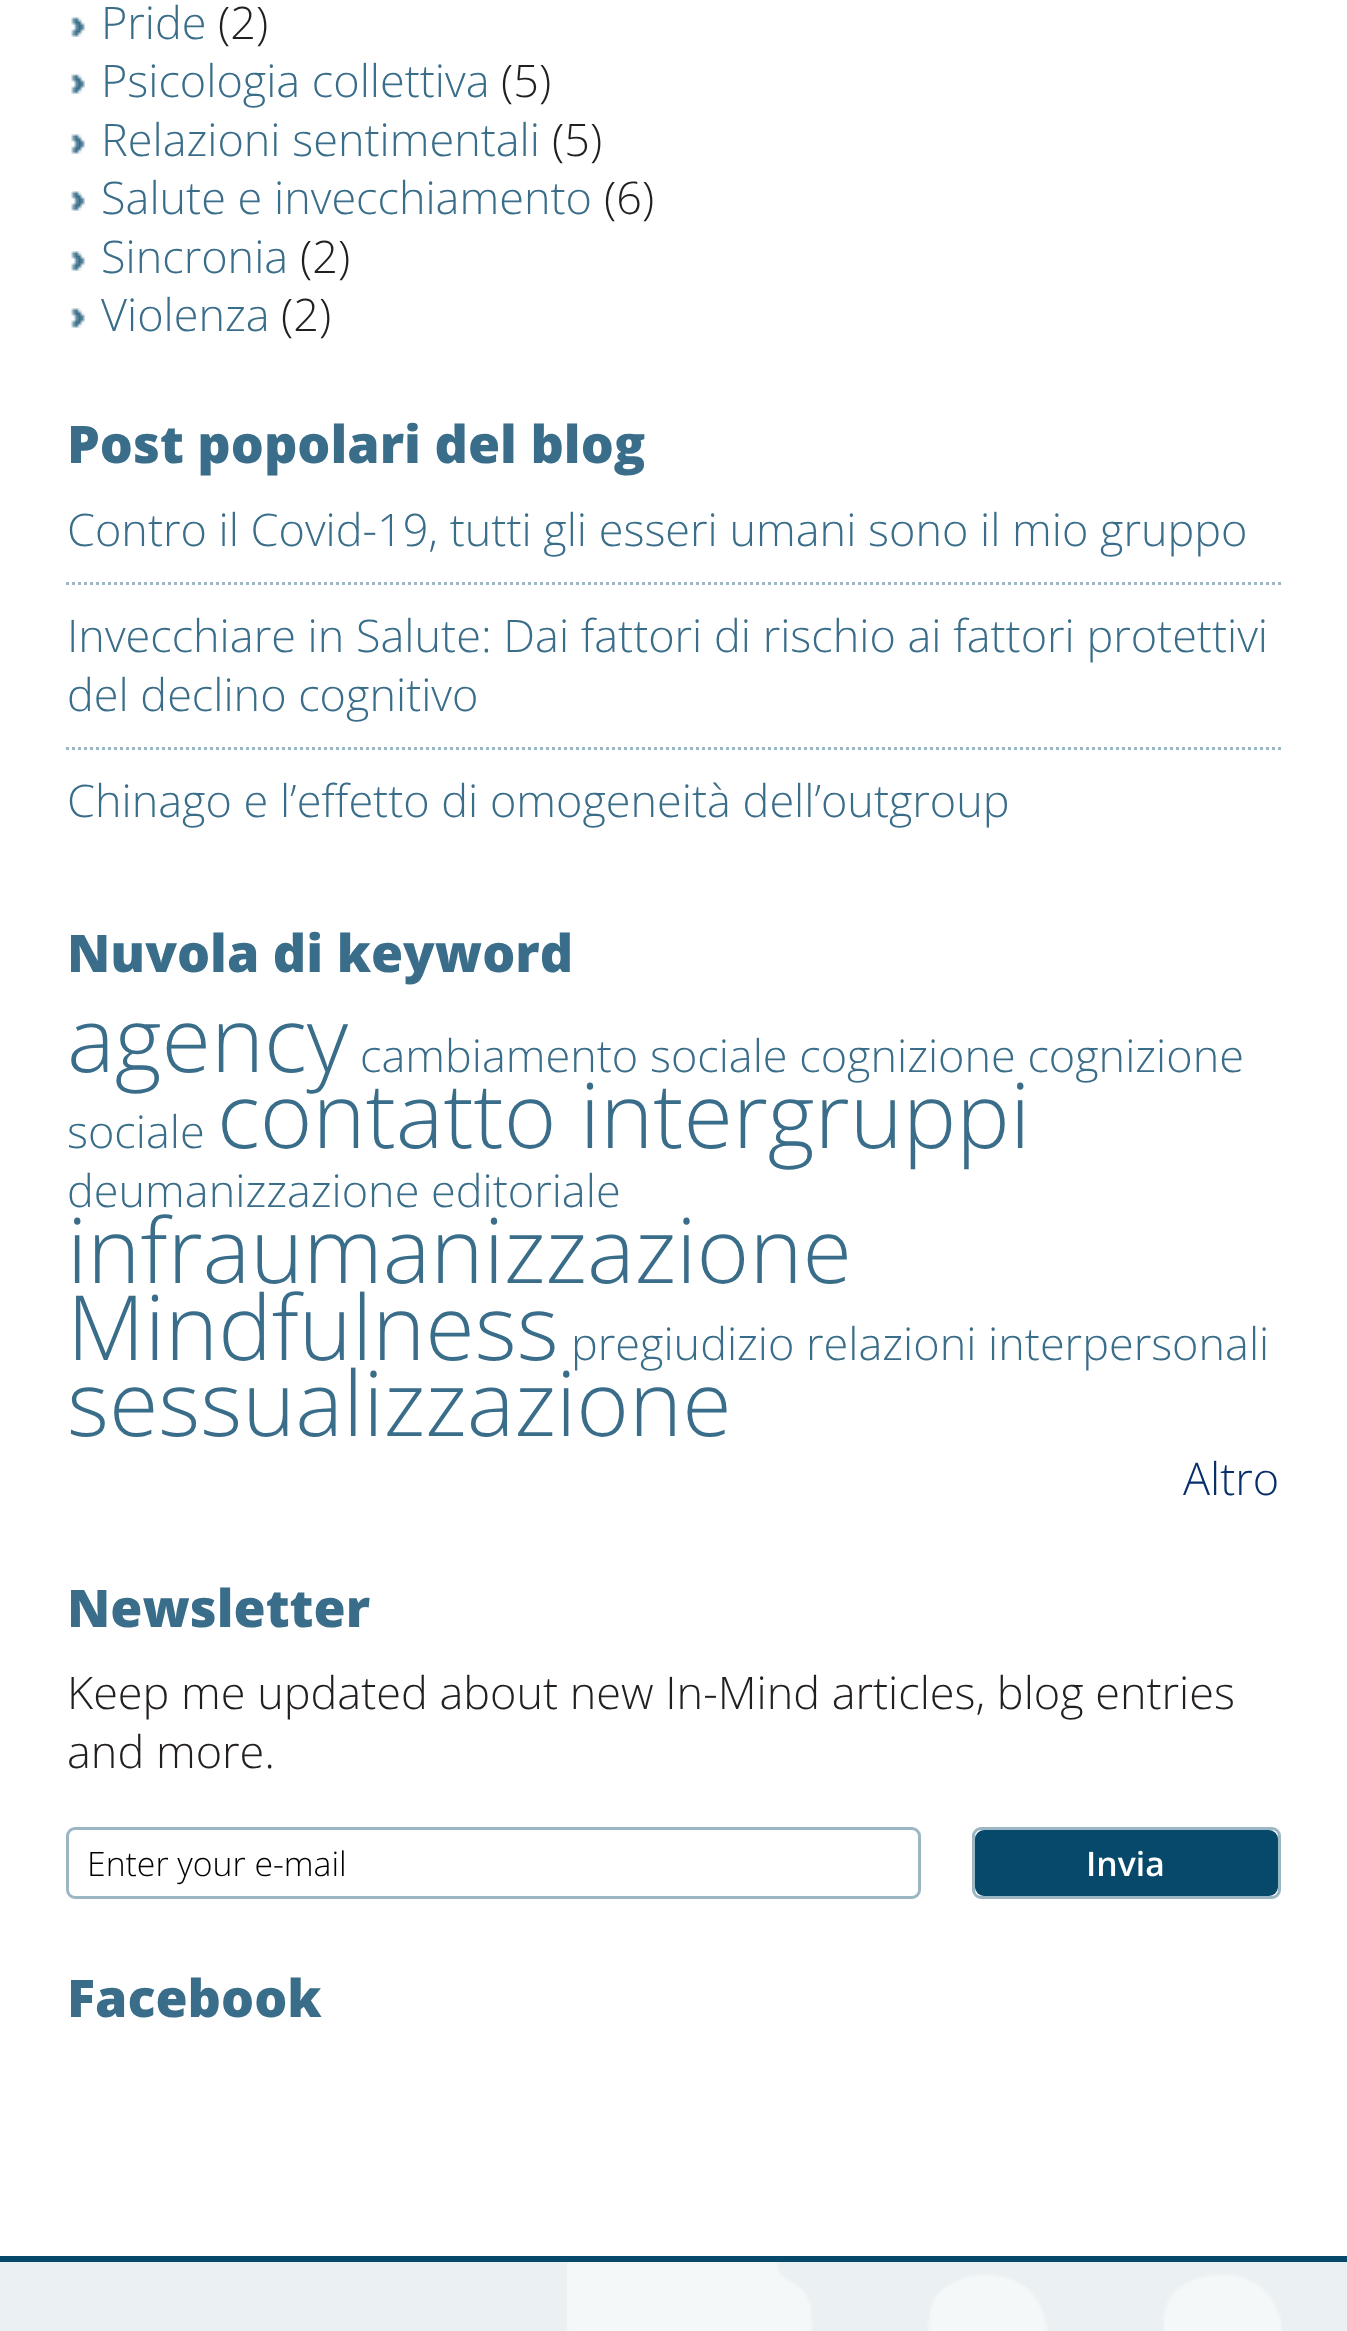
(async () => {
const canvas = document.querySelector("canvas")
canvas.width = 1347
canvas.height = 2331
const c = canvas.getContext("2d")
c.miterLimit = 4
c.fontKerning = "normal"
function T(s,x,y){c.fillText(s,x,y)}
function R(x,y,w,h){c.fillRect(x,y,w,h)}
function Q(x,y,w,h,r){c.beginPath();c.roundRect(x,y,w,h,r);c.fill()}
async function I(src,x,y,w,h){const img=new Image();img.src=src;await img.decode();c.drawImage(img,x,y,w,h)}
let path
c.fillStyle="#fff"
R(0,0,1347,2331)
await I("1.png",71,17,14,20)
c.font="300 45px Open Sans"
c.fillStyle="#396d89"
T("Pride",101,39)
c.fillStyle="#231f20"
T("(2)",218,39)
await I("1.png",71,74,14,20)
c.fillStyle="#396d89"
T("Psicologia collettiva",101,97)
c.fillStyle="#231f20"
T("(5)",501,97)
await I("1.png",71,134,14,20)
c.fillStyle="#396d89"
T("Relazioni sentimentali",101,156)
c.fillStyle="#231f20"
T("(5)",552,156)
await I("1.png",71,191,14,20)
c.fillStyle="#396d89"
T("Salute e invecchiamento",101,214)
c.fillStyle="#231f20"
T("(6)",604,214)
await I("1.png",71,251,14,20)
c.fillStyle="#396d89"
T("Sincronia",101,273)
c.fillStyle="#231f20"
T("(2)",300,273)
await I("1.png",71,308,14,20)
c.fillStyle="#396d89"
T("Violenza",101,331)
c.fillStyle="#231f20"
T("(2)",281,331)
c.font="800 52px Open Sans"
c.fillStyle="#396d89"
T("Post popolari del blog",67,463)
path = new Path2D("M66 583.5h1215")
c.strokeStyle="#9cb6c4"
c.lineWidth=3
c.setLineDash([3,3])
c.stroke(path)
c.font="300 45px Open Sans"
T("Contro il Covid-19, tutti gli esseri umani sono il mio gruppo",67,546)
path = new Path2D("M66 748.5h1215")
c.stroke(path)
T("Invecchiare in Salute: Dai fattori di rischio ai fattori protettivi",67,652)
T("del declino cognitivo",67,711)
T("Chinago e l’effetto di omogeneità dell’outgroup",67,817)
c.font="800 52px Open Sans"
T("Nuvola di keyword",67,972)
c.font="300 90px Open Sans"
T("agency",67,1072)
c.font="300 45px Open Sans"
T("cambiamento sociale cognizione cognizione",360,1072)
T("sociale",67,1148)
c.font="300 90px Open Sans"
T("contatto intergruppi",217,1148)
c.font="300 45px Open Sans"
T("deumanizzazione editoriale",67,1207)
c.font="300 90px Open Sans"
T("infraumanizzazione",67,1283)
T("Mindfulness",67,1360)
c.font="300 45px Open Sans"
T("pregiudizio relazioni interpersonali",571,1360)
c.font="300 90px Open Sans"
T("sessualizzazione",67,1436)
c.font="300 45px Open Sans"
c.fillStyle="#072f6b"
T("Altro",1183,1495)
c.font="800 52px Open Sans"
c.fillStyle="#396d89"
T("Newsletter",67,1627)
c.font="300 45px Open Sans"
c.fillStyle="#231f20"
T("Keep me updated about new In-Mind articles, blog entries",67,1709)
T("and more.",67,1768)
c.beginPath()
c.roundRect(67.5,1828.5,852,69,7.5)
c.setLineDash([])
c.stroke()
c.font="300 33.75px Open Sans"
c.fillStyle="#000"
T("Enter your e-mail",87,1876)
c.beginPath()
c.roundRect(973.5,1828.5,306,69,7.5)
c.stroke()
c.fillStyle="#07496b"
Q(975,1830,303,66,9)
c.font="600 33.75px Open Sans"
c.fillStyle="#fff"
T("Invia",1086,1876)
c.font="800 52px Open Sans"
c.fillStyle="#396d89"
T("Facebook",67,2017)
c.fillStyle="#ebf1f3"
R(0,2262,1347,69)
await I("2.png",567,2262,715,69)
c.fillStyle="#07496b"
R(0,2256,1347,6)
})()
